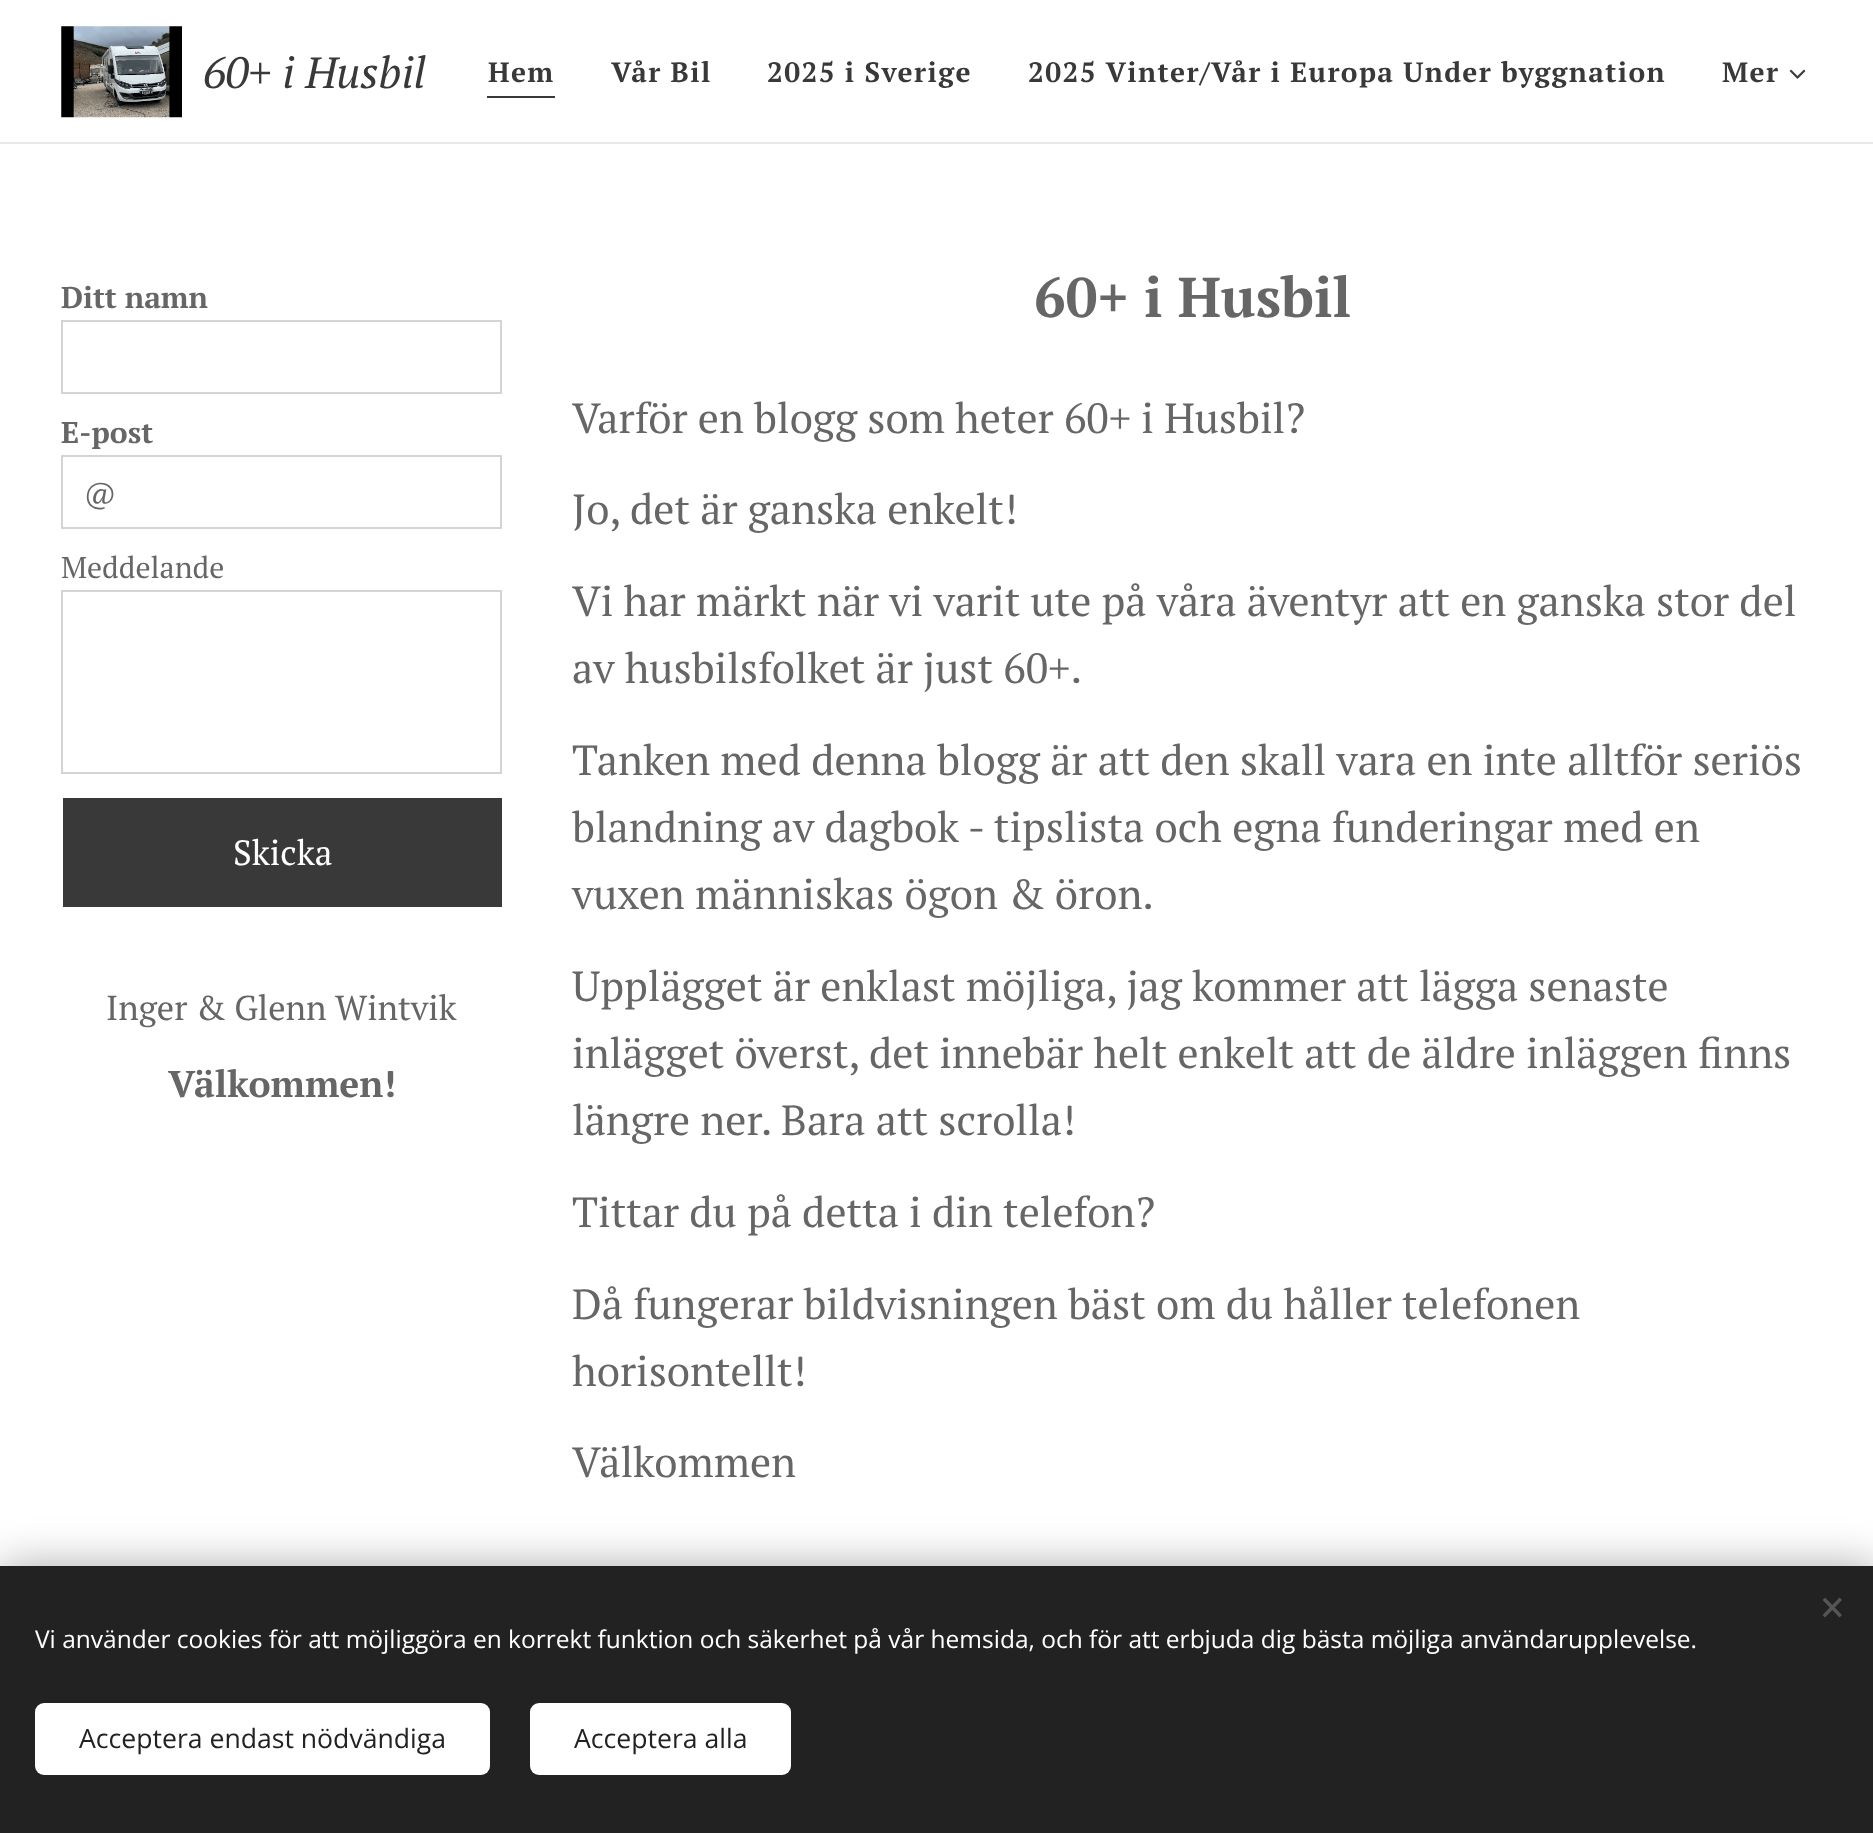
(async () => {
const canvas = document.querySelector("canvas")
canvas.width = 1873
canvas.height = 1833
const c = canvas.getContext("2d")
c.miterLimit = 4
c.fontKerning = "normal"
function T(s,x,y){c.fillText(s,x,y)}
function R(x,y,w,h){c.fillRect(x,y,w,h)}
function Q(x,y,w,h,r){c.beginPath();c.roundRect(x,y,w,h,r);c.fill()}
async function I(src,x,y,w,h){const img=new Image();img.src=src;await img.decode();c.drawImage(img,x,y,w,h)}
let path
c.fillStyle="#fff"
R(0,0,1873,1833)
await I("1.png",61,26,121,92)
c.font="italic 43.75px PT Serif"
c.fillStyle="#393939"
T("60+ i Husbil",203,88)
c.letterSpacing="1.4px"
c.font="bold 28px PT Serif"
T("Hem",488,82)
R(487,96,68,2)
T("Vår Bil",611,82)
T("2025 i Sverige",767,82)
T("2025 Vinter/Vår i Europa Under byggnation",1028,82)
T("Mer",1722,82)
await I("2.png",1789,69,17,10)
c.fillStyle="#e8e8e8"
R(0,142,1873,2)
c.letterSpacing="0px"
c.font="bold 30px PT Serif"
c.fillStyle="#666"
T("Ditt namn",61,308)
c.strokeStyle="#d4d4d4"
c.lineWidth=2
c.strokeRect(62,321,439,72)
T("E-post",61,443)
c.strokeRect(62,456,439,72)
c.font="30px PT Serif"
T("@",84,504)
T("Meddelande",61,578)
c.strokeRect(62,591,439,182)
c.fillStyle="#393939"
R(63,798,439,109)
c.font="35px PT Serif"
c.fillStyle="#fff"
T("Skicka",233,865)
c.font="34.5px PT Serif"
c.fillStyle="#666"
T("Inger & Glenn Wintvik",106,1020)
c.font="bold 37.25px PT Serif"
T("Välkommen!",168,1097)
c.font="bold 56px PT Serif"
T("60+ i Husbil",1034,317)
c.font="42px PT Serif"
T("Varför en blogg som heter 60+ i Husbil?",572,433)
T("Jo, det är ganska enkelt!",572,524)
T("Vi har märkt när vi varit ute på våra äventyr att en ganska stor del",572,616)
T("av husbilsfolket är just 60+.",572,683)
T("Tanken med denna blogg är att den skall vara en inte alltför seriös",572,775)
T("blandning av dagbok - tipslista och egna funderingar med en",572,842)
T("vuxen människas ögon & öron.",572,909)
T("Upplägget är enklast möjliga, jag kommer att lägga senaste",572,1001)
T("inlägget överst, det innebär helt enkelt att de äldre inläggen finns",572,1068)
T("längre ner. Bara att scrolla!",572,1135)
T("Tittar du på detta i din telefon?",572,1227)
T("Då fungerar bildvisningen bäst om du håller telefonen",572,1319)
T("horisontellt!",572,1386)
T("Välkommen",572,1477)
c.fillStyle="#00000054"
c.filter="blur(22px)"
c.beginPath()
c.rect(0,1566,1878,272)
c.fill()
c.filter="none"
c.fillStyle="#222"
R(0,1566,1873,267)
c.fillStyle="#555"
path = new Path2D("M1822.5 1615l17-17.5l2.5 2.5l-17 17.5z")
c.fill(path)
path = new Path2D("M1825 1597.5l17 17.5l-2.5 2.5l-17-17.5z")
c.fill(path)
c.font="24.5px Open Sans"
c.fillStyle="#fff"
T("Vi använder cookies för att möjliggöra en korrekt funktion och säkerhet på vår hemsida, och för att erbjuda dig bästa möjliga användarupplevelse.",35,1648)
Q(35,1703,455,72,9)
c.font="26.6px Open Sans"
c.fillStyle="#222"
T("Acceptera endast nödvändiga",79,1748)
c.fillStyle="#fff"
Q(530,1703,261,72,9)
c.fillStyle="#222"
T("Acceptera alla",574,1748)
})()
